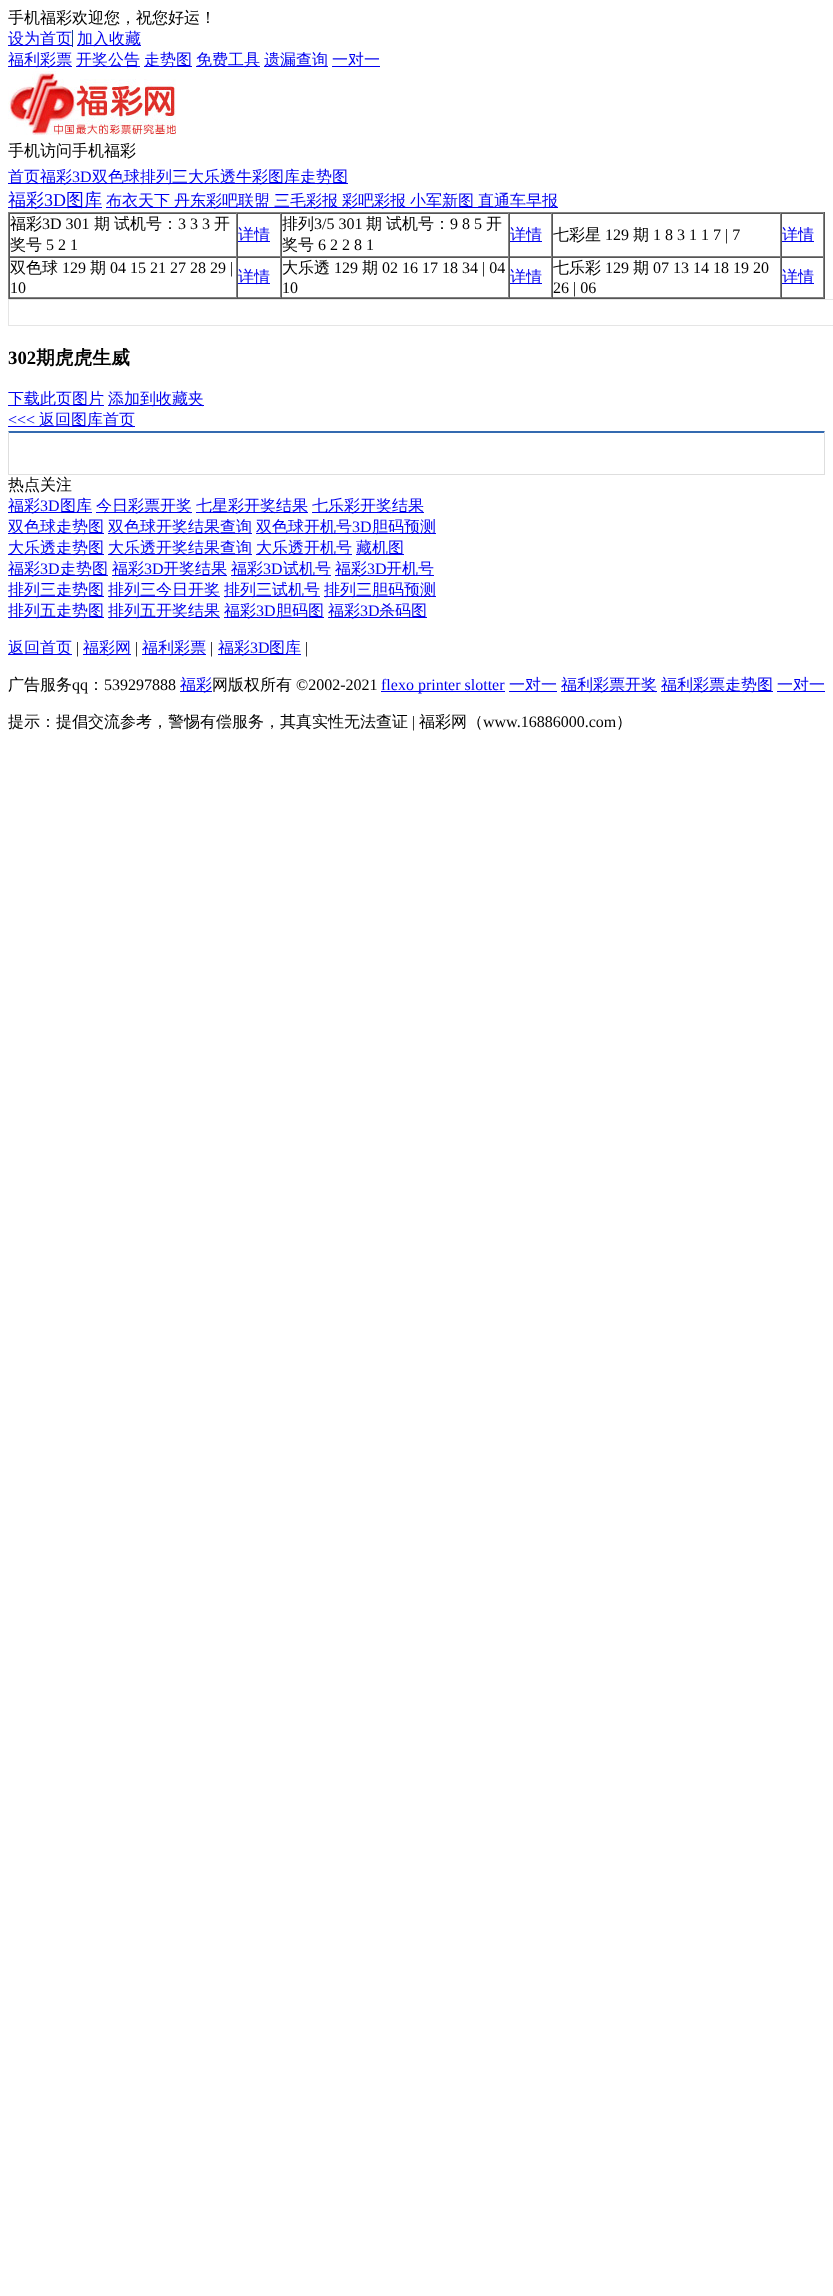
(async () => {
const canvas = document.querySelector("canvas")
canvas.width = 833
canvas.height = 2296
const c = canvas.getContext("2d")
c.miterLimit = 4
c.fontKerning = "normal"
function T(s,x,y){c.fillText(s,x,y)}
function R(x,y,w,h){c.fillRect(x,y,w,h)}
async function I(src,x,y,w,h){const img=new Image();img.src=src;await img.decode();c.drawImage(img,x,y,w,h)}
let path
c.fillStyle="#fff"
R(0,0,833,2296)
c.font="500 16px WenQuanYi Zen Hei"
c.fillStyle="#000"
T("手机福彩欢迎您，祝您好运！",8,23)
c.fillStyle="#00e"
R(8,45,64,1)
T("设为首页",8,44)
c.fillStyle="#0f3f94"
R(72,30,1,17)
c.fillStyle="#00e"
R(77,45,64,1)
T("加入收藏",77,44)
R(8,66,64,1)
T("福利彩票",8,65)
R(76,66,64,1)
T("开奖公告",76,65)
R(144,66,48,1)
T("走势图",144,65)
R(196,66,64,1)
T("免费工具",196,65)
R(264,66,64,1)
T("遗漏查询",264,65)
R(332,66,48,1)
T("一对一",332,65)
await I("1.png",8,71,168,64)
c.fillStyle="#000"
T("手机访问手机福彩",8,156)
c.fillStyle="#00e"
R(8,183,340,1)
T("首页福彩",8,182)
c.font="16px Liberation Serif"
T("3D",72,182)
c.font="500 16px WenQuanYi Zen Hei"
T("双色球排列三大乐透牛彩图库走势图",92,182)
R(8,207,94,1)
c.font="500 18px WenQuanYi Zen Hei"
T("福彩",8,206)
c.font="18px Liberation Serif"
T("3D",44,206)
c.font="500 18px WenQuanYi Zen Hei"
T("图库",66,206)
R(106,207,452,1)
c.font="500 16px WenQuanYi Zen Hei"
T("布衣天下",106,206)
T("丹东彩吧联盟",174,206)
T("三毛彩报",274,206)
T("彩吧彩报",342,206)
T("小军新图",410,206)
T("直通车早报",478,206)
c.fillStyle="#808080"
R(8,212,817,1)
c.fillStyle="#555"
R(824,212,1,87)
R(8,298,817,1)
c.fillStyle="#808080"
R(8,212,1,87)
c.fillStyle="#555"
R(9,213,815,1)
c.fillStyle="#808080"
R(236,213,1,44)
R(9,256,228,1)
c.fillStyle="#555"
R(9,213,1,44)
c.fillStyle="#000"
T("福彩",10,229)
c.font="16px Liberation Serif"
T("3D 301",42,229)
c.font="500 16px WenQuanYi Zen Hei"
T("期",94,229)
T("试机号：",114,229)
c.font="16px Liberation Serif"
T("3 3 3",178,229)
c.font="500 16px WenQuanYi Zen Hei"
T("开",214,229)
T("奖号",10,250)
c.font="16px Liberation Serif"
T("5 2 1",46,250)
c.fillStyle="#808080"
R(280,213,1,44)
R(237,256,44,1)
c.fillStyle="#555"
R(237,213,1,44)
c.fillStyle="#00e"
R(238,241,32,1)
c.font="500 16px WenQuanYi Zen Hei"
T("详情",238,240)
c.fillStyle="#808080"
R(508,213,1,44)
R(281,256,228,1)
c.fillStyle="#555"
R(281,213,1,44)
c.fillStyle="#000"
T("排列",282,229)
c.font="16px Liberation Serif"
T("3/5 301",314,229)
c.font="500 16px WenQuanYi Zen Hei"
T("期",366,229)
T("试机号：",386,229)
c.font="16px Liberation Serif"
T("9 8 5",450,229)
c.font="500 16px WenQuanYi Zen Hei"
T("开",486,229)
T("奖号",282,250)
c.font="16px Liberation Serif"
T("6 2 2 8 1",318,250)
c.fillStyle="#808080"
R(551,213,1,44)
R(509,256,43,1)
c.fillStyle="#555"
R(509,213,1,44)
c.fillStyle="#00e"
R(510,241,32,1)
c.font="500 16px WenQuanYi Zen Hei"
T("详情",510,240)
c.fillStyle="#808080"
R(780,213,1,44)
R(552,256,229,1)
c.fillStyle="#555"
R(552,213,1,44)
c.fillStyle="#000"
T("七彩星",553,240)
c.font="16px Liberation Serif"
T("129",605,240)
c.font="500 16px WenQuanYi Zen Hei"
T("期",633,240)
c.font="16px Liberation Serif"
T("1 8 3 1 1 7 | 7",653,240)
c.fillStyle="#808080"
R(823,213,1,44)
R(781,256,43,1)
c.fillStyle="#555"
R(781,213,1,44)
c.fillStyle="#00e"
R(782,241,32,1)
c.font="500 16px WenQuanYi Zen Hei"
T("详情",782,240)
c.fillStyle="#555"
R(9,257,815,1)
c.fillStyle="#808080"
R(236,257,1,41)
R(9,297,228,1)
c.fillStyle="#555"
R(9,257,1,41)
c.fillStyle="#000"
T("双色球",10,273)
c.font="16px Liberation Serif"
T("129",62,273)
c.font="500 16px WenQuanYi Zen Hei"
T("期",90,273)
c.font="16px Liberation Serif"
T("04 15 21 27 28 29 |",110,273)
T("10",10,293)
c.fillStyle="#808080"
R(280,257,1,41)
R(237,297,44,1)
c.fillStyle="#555"
R(237,257,1,41)
c.fillStyle="#00e"
R(238,283,32,1)
c.font="500 16px WenQuanYi Zen Hei"
T("详情",238,282)
c.fillStyle="#808080"
R(508,257,1,41)
R(281,297,228,1)
c.fillStyle="#555"
R(281,257,1,41)
c.fillStyle="#000"
T("大乐透",282,273)
c.font="16px Liberation Serif"
T("129",334,273)
c.font="500 16px WenQuanYi Zen Hei"
T("期",362,273)
c.font="16px Liberation Serif"
T("02 16 17 18 34 | 04",382,273)
T("10",282,293)
c.fillStyle="#808080"
R(551,257,1,41)
R(509,297,43,1)
c.fillStyle="#555"
R(509,257,1,41)
c.fillStyle="#00e"
R(510,283,32,1)
c.font="500 16px WenQuanYi Zen Hei"
T("详情",510,282)
c.fillStyle="#808080"
R(780,257,1,41)
R(552,297,229,1)
c.fillStyle="#555"
R(552,257,1,41)
c.fillStyle="#000"
T("七乐彩",553,273)
c.font="16px Liberation Serif"
T("129",605,273)
c.font="500 16px WenQuanYi Zen Hei"
T("期",633,273)
c.font="16px Liberation Serif"
T("07 13 14 18 19 20",653,273)
T("26 | 06",553,293)
c.fillStyle="#808080"
R(823,257,1,41)
R(781,297,43,1)
c.fillStyle="#555"
R(781,257,1,41)
c.fillStyle="#00e"
R(782,283,32,1)
c.font="500 16px WenQuanYi Zen Hei"
T("详情",782,282)
c.strokeStyle="#e5e5e5"
c.strokeRect(8.5,299.5,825,26)
c.font="bold 18.75px Liberation Serif"
c.fillStyle="#000"
T("302",8,364)
c.font="bold 18.75px WenQuanYi Zen Hei"
T("期虎虎生威",36,364)
c.fillStyle="#00e"
R(8,405,96,1)
c.font="500 16px WenQuanYi Zen Hei"
T("下载此页图片",8,404)
R(108,405,96,1)
T("添加到收藏夹",108,404)
c.font="16px Liberation Serif"
T("<<<",8,425)
R(8,426,127,1)
c.font="500 16px WenQuanYi Zen Hei"
T("返回图库首页",39,425)
c.fillStyle="#346ab0"
path = new Path2D("M8 431h817l-1 2h-815z")
c.fill(path)
c.fillStyle="#dedede"
path = new Path2D("M825 431v44l-1-1v-41z")
c.fill(path)
R(8,474,817,1)
path = new Path2D("M8 475v-44l1 2v41z")
c.fill(path)
c.fillStyle="#000"
T("热点关注",8,490)
c.fillStyle="#00e"
R(8,512,84,1)
T("福彩",8,511)
c.font="16px Liberation Serif"
T("3D",40,511)
c.font="500 16px WenQuanYi Zen Hei"
T("图库",60,511)
R(96,512,96,1)
T("今日彩票开奖",96,511)
R(196,512,112,1)
T("七星彩开奖结果",196,511)
R(312,512,112,1)
T("七乐彩开奖结果",312,511)
R(8,533,96,1)
T("双色球走势图",8,532)
R(108,533,144,1)
T("双色球开奖结果查询",108,532)
R(256,533,180,1)
T("双色球开机号",256,532)
c.font="16px Liberation Serif"
T("3D",352,532)
c.font="500 16px WenQuanYi Zen Hei"
T("胆码预测",372,532)
R(8,554,96,1)
T("大乐透走势图",8,553)
R(108,554,144,1)
T("大乐透开奖结果查询",108,553)
R(256,554,96,1)
T("大乐透开机号",256,553)
R(356,554,48,1)
T("藏机图",356,553)
R(8,575,100,1)
T("福彩",8,574)
c.font="16px Liberation Serif"
T("3D",40,574)
c.font="500 16px WenQuanYi Zen Hei"
T("走势图",60,574)
R(112,575,115,1)
T("福彩",112,574)
c.font="16px Liberation Serif"
T("3D",144,574)
c.font="500 16px WenQuanYi Zen Hei"
T("开奖结果",163,574)
R(231,575,100,1)
T("福彩",231,574)
c.font="16px Liberation Serif"
T("3D",263,574)
c.font="500 16px WenQuanYi Zen Hei"
T("试机号",283,574)
R(335,575,99,1)
T("福彩",335,574)
c.font="16px Liberation Serif"
T("3D",367,574)
c.font="500 16px WenQuanYi Zen Hei"
T("开机号",386,574)
R(8,596,96,1)
T("排列三走势图",8,595)
R(108,596,112,1)
T("排列三今日开奖",108,595)
R(224,596,96,1)
T("排列三试机号",224,595)
R(324,596,112,1)
T("排列三胆码预测",324,595)
R(8,617,96,1)
T("排列五走势图",8,616)
R(108,617,112,1)
T("排列五开奖结果",108,616)
R(224,617,100,1)
T("福彩",224,616)
c.font="16px Liberation Serif"
T("3D",256,616)
c.font="500 16px WenQuanYi Zen Hei"
T("胆码图",276,616)
R(328,617,99,1)
T("福彩",328,616)
c.font="16px Liberation Serif"
T("3D",360,616)
c.font="500 16px WenQuanYi Zen Hei"
T("杀码图",379,616)
R(8,654,64,1)
T("返回首页",8,653)
c.font="16px Liberation Serif"
c.fillStyle="#000"
T("|",76,653)
c.fillStyle="#00e"
R(83,654,48,1)
c.font="500 16px WenQuanYi Zen Hei"
T("福彩网",83,653)
c.font="16px Liberation Serif"
c.fillStyle="#000"
T("|",135,653)
c.fillStyle="#00e"
R(142,654,64,1)
c.font="500 16px WenQuanYi Zen Hei"
T("福利彩票",142,653)
c.font="16px Liberation Serif"
c.fillStyle="#000"
T("|",210,653)
c.fillStyle="#00e"
R(218,654,83,1)
c.font="500 16px WenQuanYi Zen Hei"
T("福彩",218,653)
c.font="16px Liberation Serif"
T("3D",250,653)
c.font="500 16px WenQuanYi Zen Hei"
T("图库",269,653)
c.font="16px Liberation Serif"
c.fillStyle="#000"
T("|",305,653)
c.font="500 16px WenQuanYi Zen Hei"
T("广告服务",8,690)
c.font="16px Liberation Serif"
T("qq",72,690)
c.font="500 16px WenQuanYi Zen Hei"
T("：",88,690)
c.font="16px Liberation Serif"
T("539297888",104,690)
c.fillStyle="#00e"
R(180,691,32,1)
c.font="500 16px WenQuanYi Zen Hei"
T("福彩",180,690)
c.fillStyle="#000"
T("网版权所有",212,690)
c.font="16px Liberation Serif"
T("©2002-2021",296,690)
c.fillStyle="#00e"
R(381,691,124,1)
T("flexo printer slotter",381,690)
R(509,691,48,1)
c.font="500 16px WenQuanYi Zen Hei"
T("一对一",509,690)
R(561,691,96,1)
T("福利彩票开奖",561,690)
R(661,691,112,1)
T("福利彩票走势图",661,690)
R(777,691,48,1)
T("一对一",777,690)
c.fillStyle="#000"
T("提示：提倡交流参考，警惕有偿服务，其真实性无法查证",8,727)
c.font="16px Liberation Serif"
T("|",412,727)
c.font="500 16px WenQuanYi Zen Hei"
T("福彩网（",419,727)
c.font="16px Liberation Serif"
T("www.16886000.com",483,727)
c.font="500 16px WenQuanYi Zen Hei"
T("）",616,727)
})()
